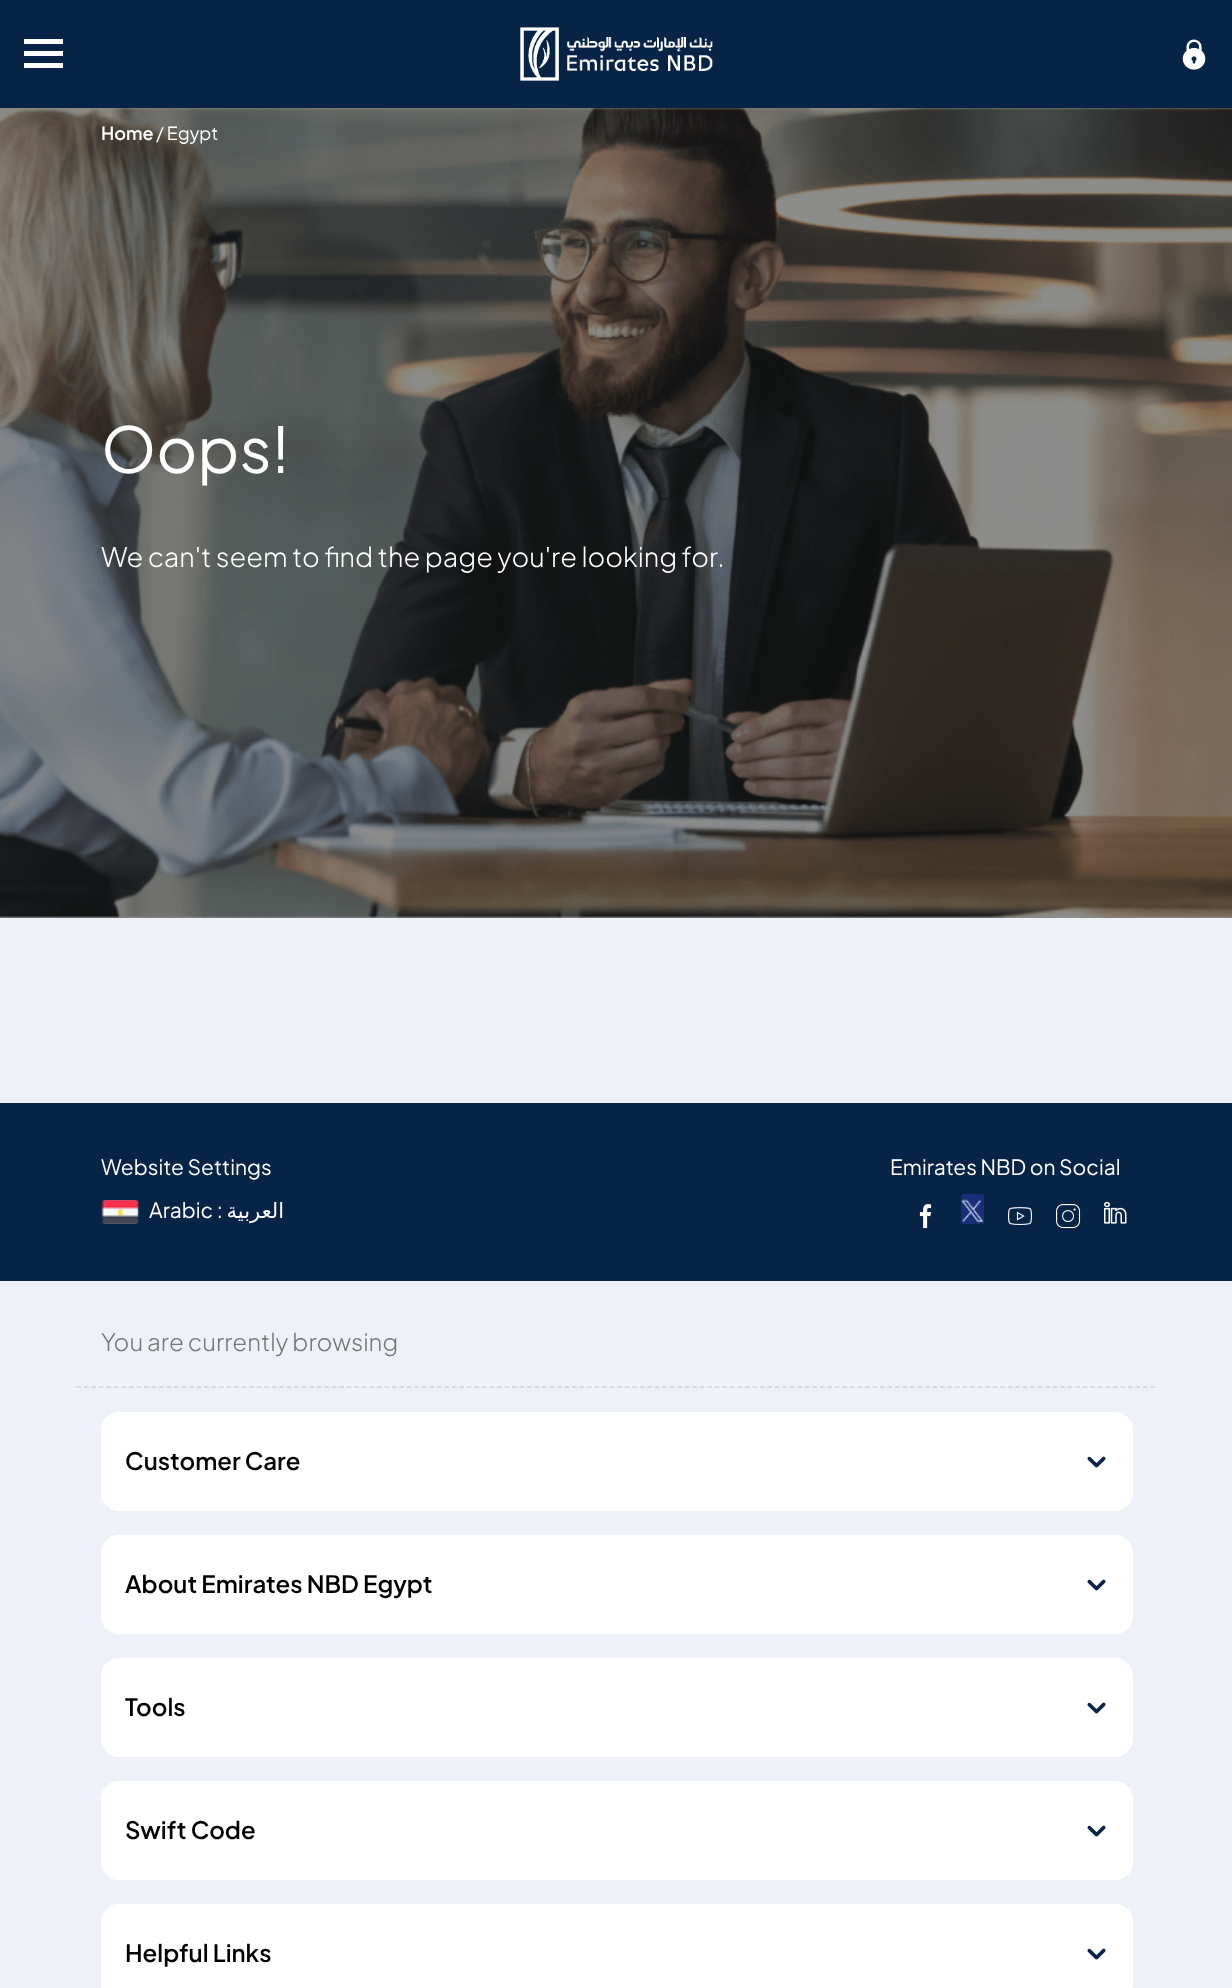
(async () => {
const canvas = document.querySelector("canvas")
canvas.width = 1232
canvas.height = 1988
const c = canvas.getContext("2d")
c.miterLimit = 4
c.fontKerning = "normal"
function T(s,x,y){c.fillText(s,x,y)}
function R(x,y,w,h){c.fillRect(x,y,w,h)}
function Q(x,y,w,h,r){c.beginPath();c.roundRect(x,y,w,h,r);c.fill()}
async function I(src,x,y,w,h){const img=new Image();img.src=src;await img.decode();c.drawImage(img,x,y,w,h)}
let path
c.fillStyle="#eef2f8"
R(0,0,1232,1988)
c.fillStyle="#072447"
R(0,0,1232,108)
await I("1.png",520,27,193,54)
c.fillStyle="#fff"
R(24,51,39,5)
R(24,39,39,5)
R(24,63,39,5)
await I("2.png",1182,39,24,31)
c.fillStyle="#8c8c8c"
R(0,108,1232,810)
await I("3.png",0,108,1232,810)
c.font="600 18px Plus Jakarta Sans"
c.fillStyle="#fff"
T("Home",101,140)
c.font="18px Plus Jakarta Sans"
T("/ Egypt",156,140)
c.font="63px Plus Jakarta Sans"
T("Oops!",101,473)
c.font="300 27px Plus Jakarta Sans"
T("We can't seem to find the page you're looking for.",101,567)
c.fillStyle="#072447"
R(0,1103,1232,178)
c.font="21px Plus Jakarta Sans"
c.fillStyle="#fff"
T("Website Settings",101,1175)
await I("4.png",101,1200,39,24)
T("Arabic :",149,1218)
c.direction="rtl"
c.font="21px DejaVu Sans"
T("العربية",284,1218)
c.direction="ltr"
c.font="21px Plus Jakarta Sans"
T("Emirates NBD on Social",890,1175)
await I("5.png",919,1204,13,25)
await I("6.png",961,1194,23,30)
await I("7.png",1008,1207,24,18)
await I("8.png",1056,1204,25,25)
await I("9.png",1104,1202,23,22)
c.font="300 24px Plus Jakarta Sans"
c.fillStyle="#757575"
T("You are currently browsing",101,1351)
path = new Path2D("M76.5 1387h1080")
c.strokeStyle="#d4d4d4"
c.lineWidth=1.5
c.setLineDash([4.5,3.01])
c.stroke(path)
c.fillStyle="#fff"
Q(101,1412,1032,99,18)
c.font="600 24px Plus Jakarta Sans"
c.fillStyle="#000"
T("Customer Care",125,1470)
await I("10.png",1087,1456,19,12)
c.fillStyle="#fff"
Q(101,1535,1032,99,18)
c.fillStyle="#000"
T("About Emirates NBD Egypt",125,1593)
await I("10.png",1087,1579,19,12)
c.fillStyle="#fff"
Q(101,1658,1032,99,18)
c.fillStyle="#000"
T("Tools",125,1716)
await I("10.png",1087,1702,19,12)
c.fillStyle="#fff"
Q(101,1781,1032,99,18)
c.fillStyle="#000"
T("Swift Code",125,1839)
await I("10.png",1087,1825,19,12)
c.fillStyle="#fff"
Q(101,1904,1032,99,18)
c.fillStyle="#000"
T("Helpful Links",125,1962)
await I("10.png",1087,1948,19,12)
})()
